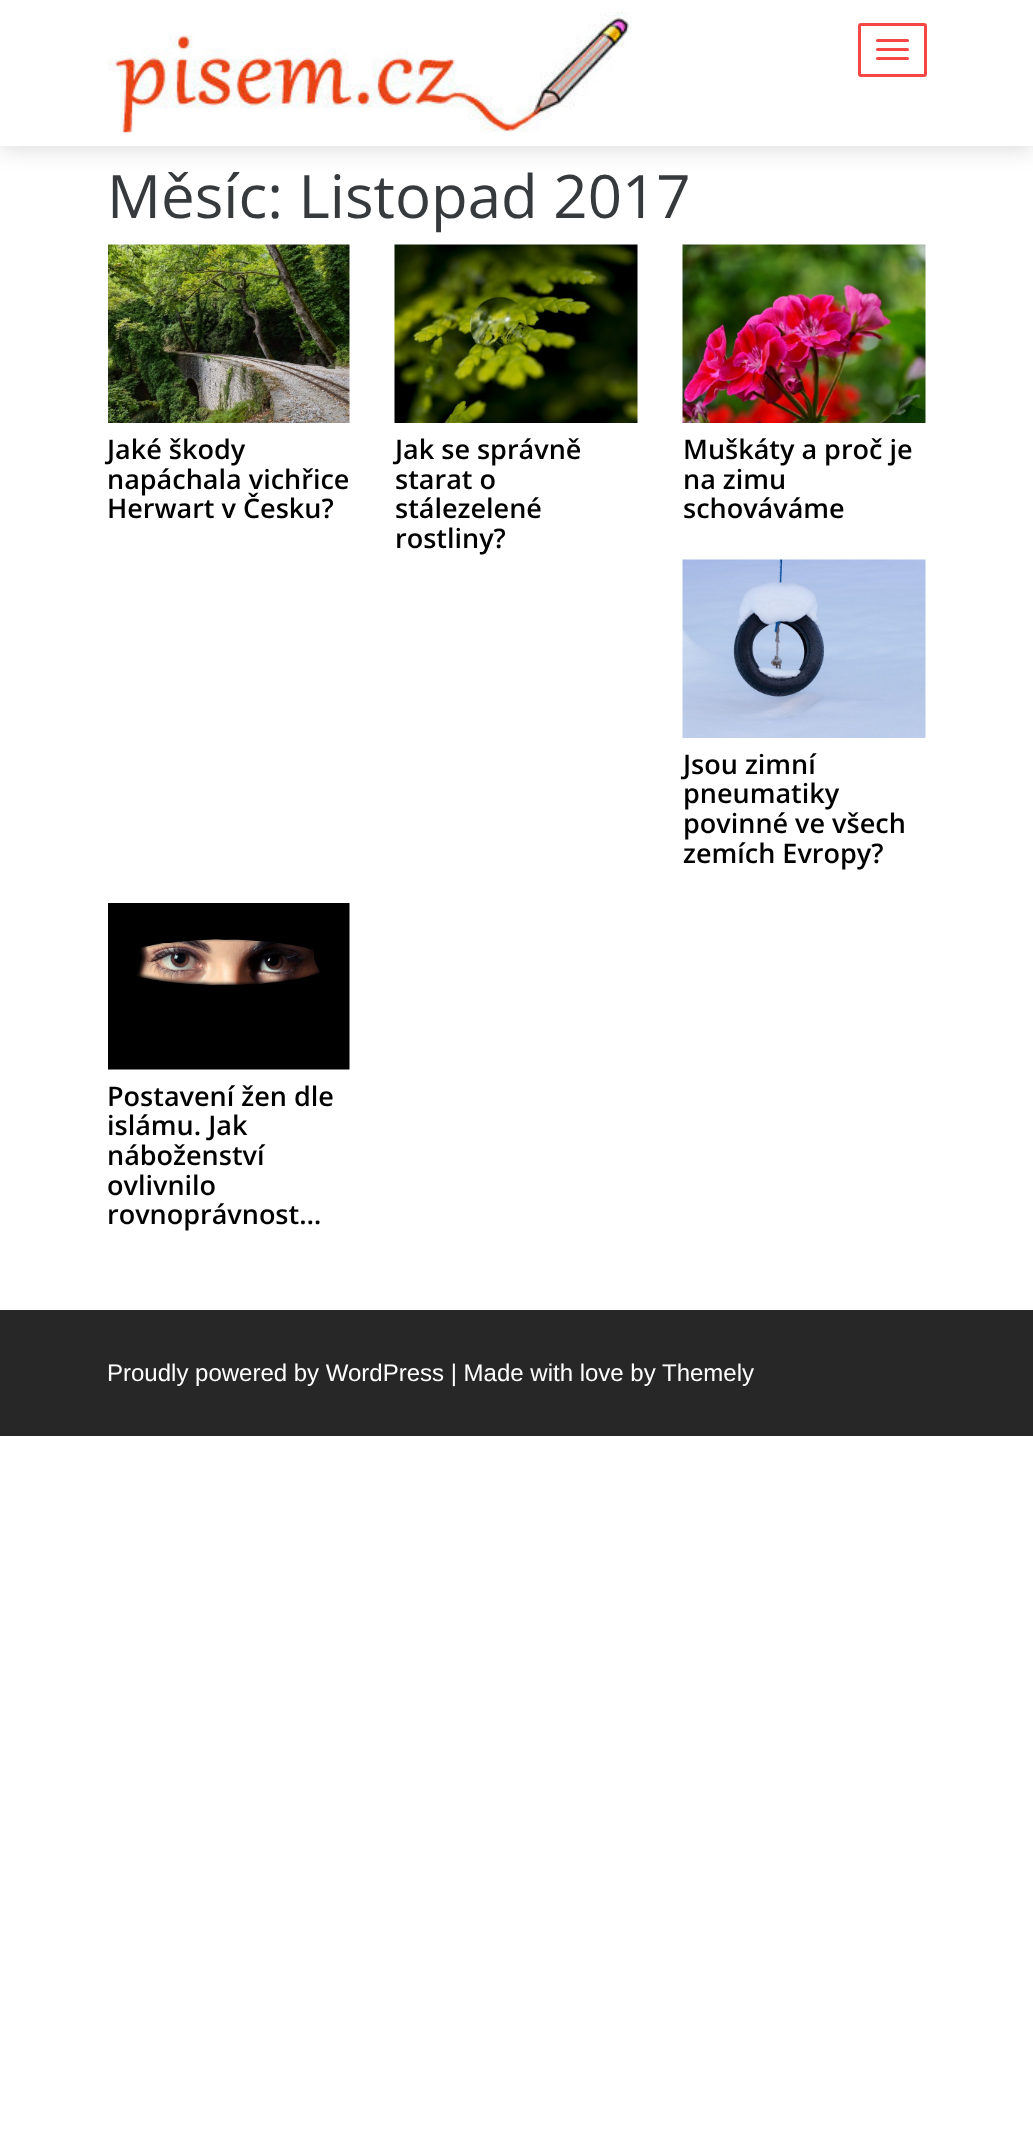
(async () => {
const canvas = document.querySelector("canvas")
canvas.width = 1033
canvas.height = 2148
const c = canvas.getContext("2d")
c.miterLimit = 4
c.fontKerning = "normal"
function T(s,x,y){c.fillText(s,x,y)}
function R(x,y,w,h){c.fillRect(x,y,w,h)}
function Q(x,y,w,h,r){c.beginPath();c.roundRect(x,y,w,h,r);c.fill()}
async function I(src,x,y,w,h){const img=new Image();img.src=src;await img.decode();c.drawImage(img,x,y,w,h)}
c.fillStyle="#fff"
R(0,0,1033,2148)
c.fillStyle="#0000002e"
c.filter="blur(12px)"
c.beginPath()
c.rect(0,0,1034,146)
c.fill()
c.filter="none"
c.fillStyle="#fff"
R(0,0,1033,146)
await I("1.png",108,12,524,122)
c.beginPath()
c.roundRect(859.5,24.5,66,51,1.5)
c.strokeStyle="#f64744"
c.lineWidth=3
c.stroke()
c.fillStyle="#f64744"
Q(876,39,33,3,1.5)
Q(876,48,33,3,1.5)
Q(876,57,33,3,1.5)
c.font="60px Open Sans"
c.fillStyle="#373a3c"
T("Měsíc: Listopad 2017",107,218)
await I("2.png",108,244,242,179)
c.font="600 27px Open Sans"
c.fillStyle="#000"
T("Jaké škody",107,459)
T("napáchala vichřice",107,489)
T("Herwart v Česku?",107,518)
await I("3.png",394,244,244,179)
T("Jak se správně",395,459)
T("starat o",395,489)
T("stálezelené",395,518)
T("rostliny?",395,548)
await I("4.png",682,244,244,179)
T("Muškáty a proč je",683,459)
T("na zimu",683,489)
T("schováváme",683,518)
await I("5.png",682,559,244,179)
T("Jsou zimní",683,774)
T("pneumatiky",683,803)
T("povinné ve všech",683,833)
T("zemích Evropy?",683,863)
await I("6.png",108,903,242,167)
T("Postavení žen dle",107,1106)
T("islámu. Jak",107,1135)
T("náboženství",107,1165)
T("ovlivnilo",107,1195)
T("rovnoprávnost…",107,1224)
c.fillStyle="#272727"
R(0,1310,1033,126)
c.font="24px Liberation Sans"
c.fillStyle="#fff"
T("Proudly powered by WordPress | Made with love by",107,1381)
T("Themely",662,1381)
})()
